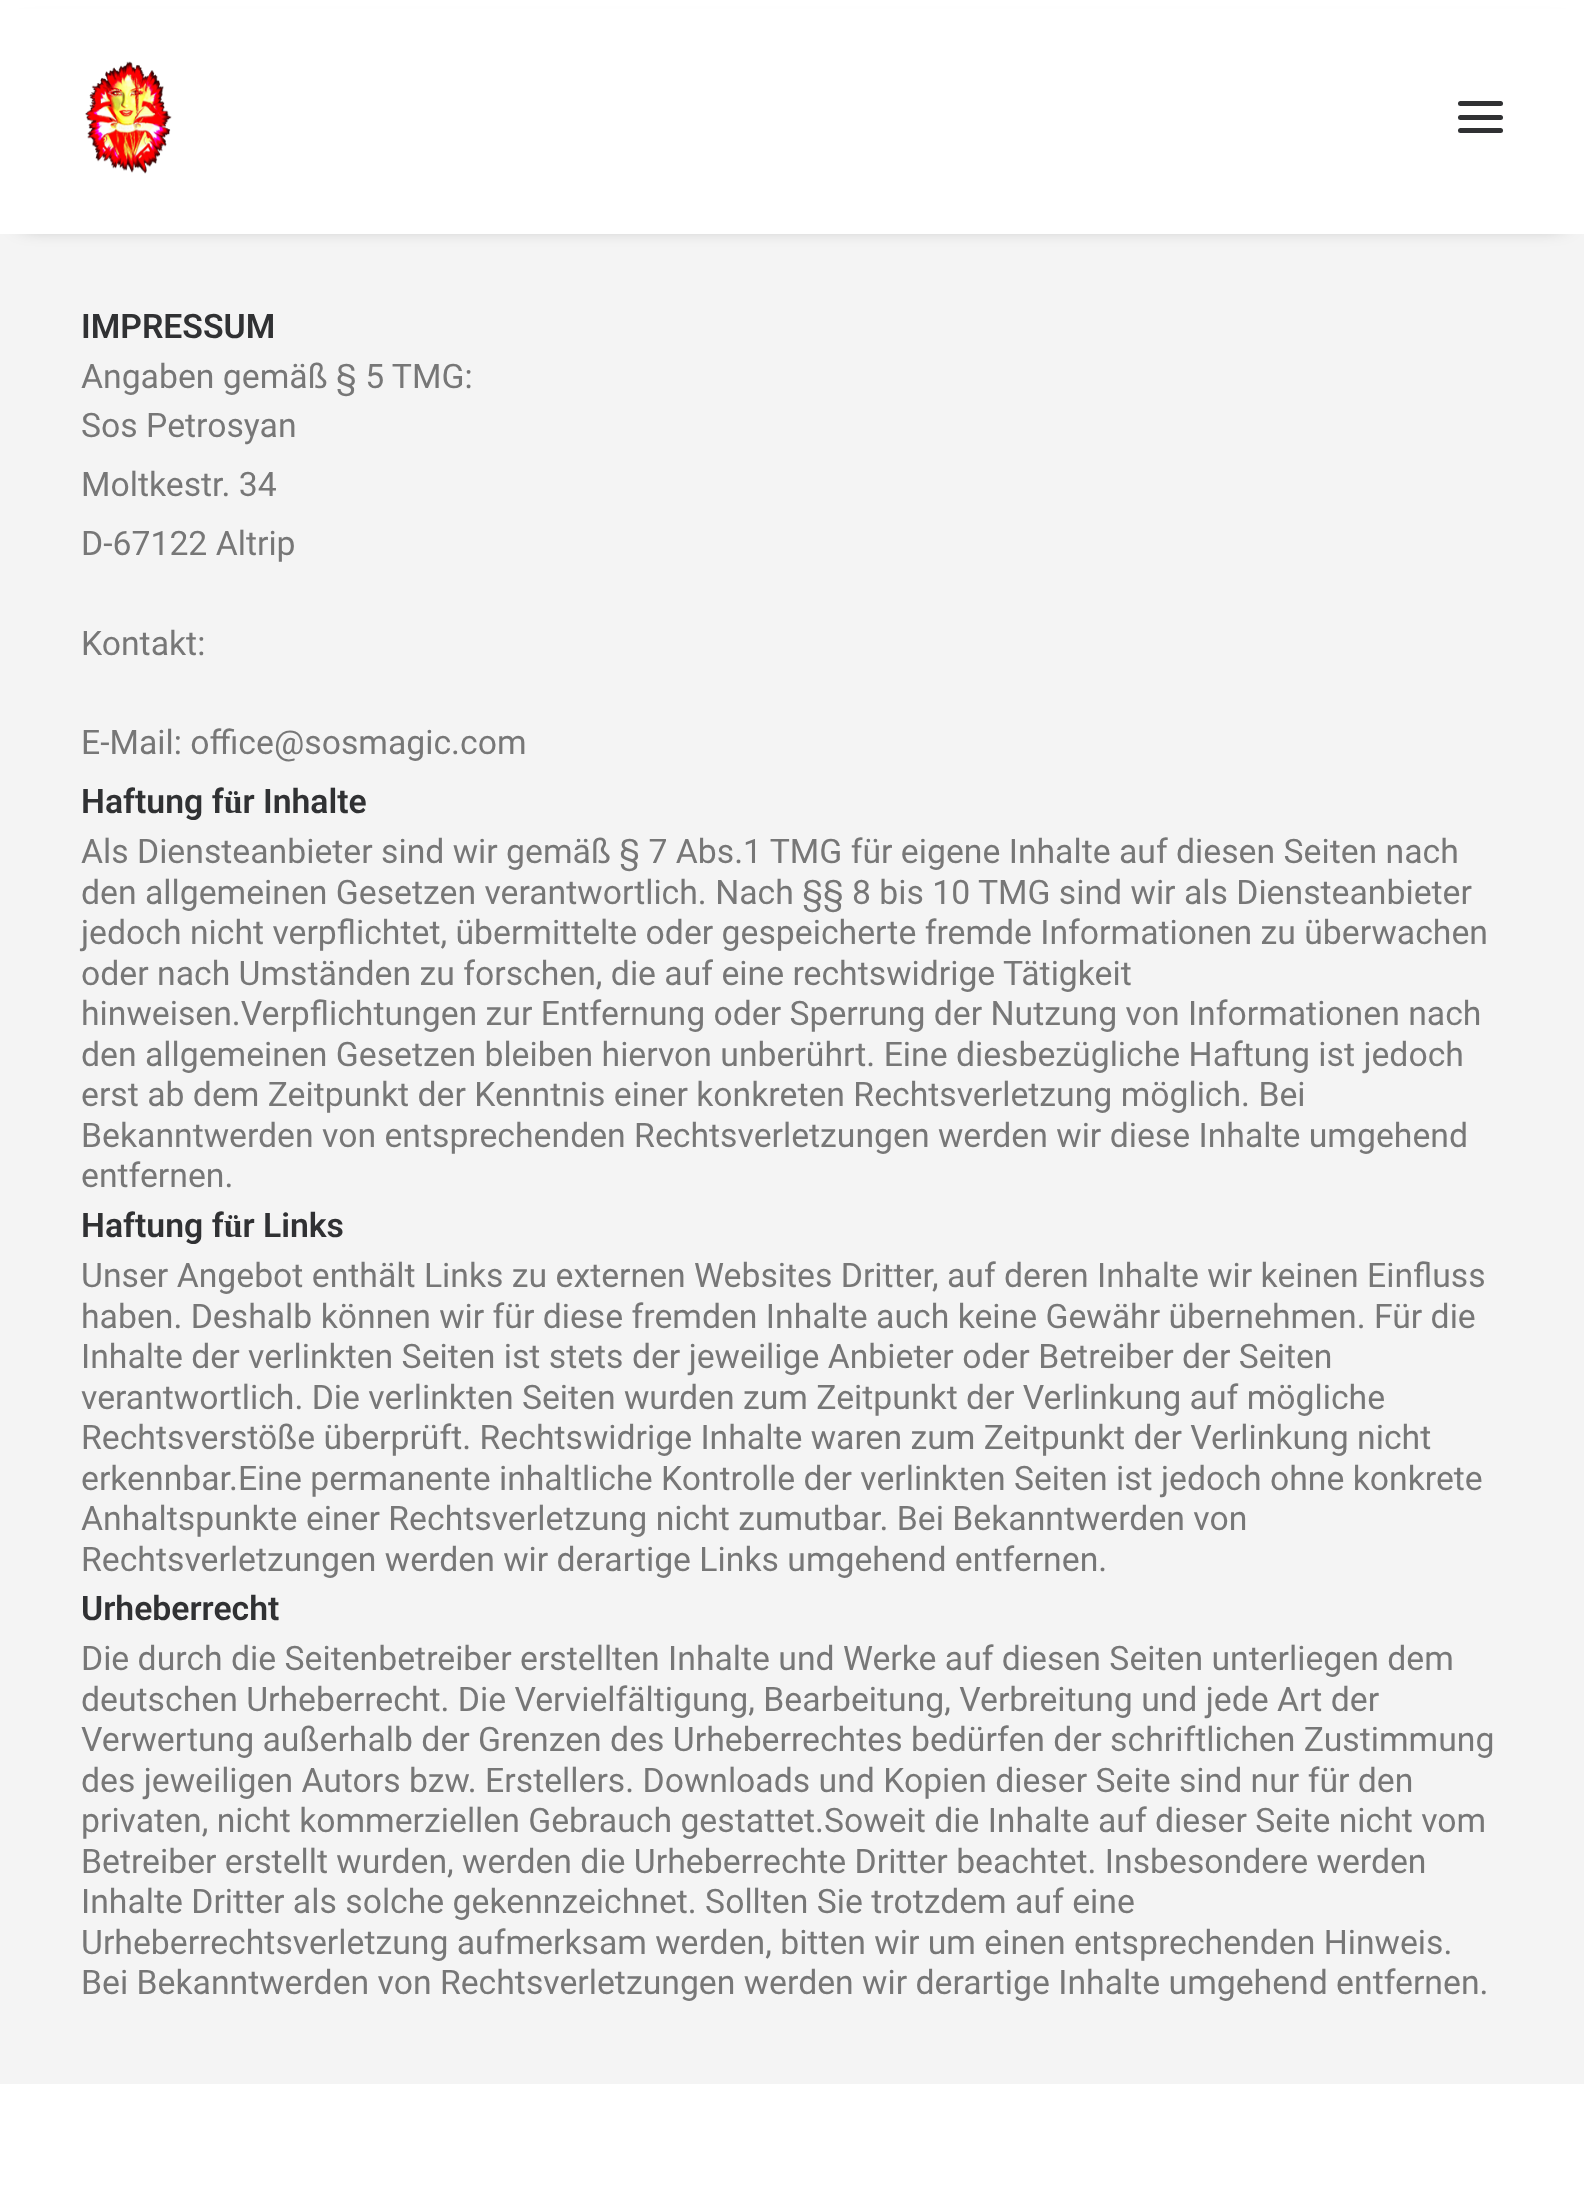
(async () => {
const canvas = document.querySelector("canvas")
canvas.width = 1584
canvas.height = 2194
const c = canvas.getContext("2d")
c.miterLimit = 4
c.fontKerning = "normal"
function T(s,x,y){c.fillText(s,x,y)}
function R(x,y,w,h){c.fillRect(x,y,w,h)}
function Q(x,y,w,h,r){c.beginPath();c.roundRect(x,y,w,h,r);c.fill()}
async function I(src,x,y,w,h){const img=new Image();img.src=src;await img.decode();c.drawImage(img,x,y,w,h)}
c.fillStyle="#fff"
R(0,0,1584,2194)
c.fillStyle="#f4f4f4"
R(0,234,1584,1850)
c.fillStyle="#00000099"
c.filter="blur(11px)"
c.beginPath()
c.rect(23,32,1539,189)
c.fill()
c.filter="none"
c.fillStyle="#fff"
R(0,9,1584,225)
await I("1.png",85,61,87,113)
c.fillStyle="#303133"
Q(1458,115,45,5,2.5)
Q(1458,101,45,5,2.5)
Q(1458,128,45,5,2.5)
c.font="600 33.75px Roboto"
T("IMPRESSUM",81,338)
c.font="33.75px Roboto"
c.fillStyle="#777"
T("Angaben gemäß § 5 TMG:",81,388)
T("Sos Petrosyan",81,437)
T("Moltkestr. 34",81,496)
T("D-67122 Altrip",81,555)
T("Kontakt:",81,655)
T("E-Mail: office@sosmagic.com",81,754)
c.font="600 33.75px Roboto"
c.fillStyle="#303133"
T("Haftung für Inhalte",81,813)
c.font="33.75px Roboto"
c.fillStyle="#777"
T("Als Diensteanbieter sind wir gemäß § 7 Abs.1 TMG für eigene Inhalte auf diesen Seiten nach",81,863)
T("den allgemeinen Gesetzen verantwortlich. Nach §§ 8 bis 10 TMG sind wir als Diensteanbieter",81,904)
T("jedoch nicht verpflichtet, übermittelte oder gespeicherte fremde Informationen zu überwachen",81,944)
T("oder nach Umständen zu forschen, die auf eine rechtswidrige Tätigkeit",81,985)
T("hinweisen.Verpflichtungen zur Entfernung oder Sperrung der Nutzung von Informationen nach",81,1025)
T("den allgemeinen Gesetzen bleiben hiervon unberührt. Eine diesbezügliche Haftung ist jedoch",81,1066)
T("erst ab dem Zeitpunkt der Kenntnis einer konkreten Rechtsverletzung möglich. Bei",81,1106)
T("Bekanntwerden von entsprechenden Rechtsverletzungen werden wir diese Inhalte umgehend",81,1147)
T("entfernen.",81,1187)
c.font="600 33.75px Roboto"
c.fillStyle="#303133"
T("Haftung für Links",81,1237)
c.font="33.75px Roboto"
c.fillStyle="#777"
T("Unser Angebot enthält Links zu externen Websites Dritter, auf deren Inhalte wir keinen Einfluss",81,1287)
T("haben. Deshalb können wir für diese fremden Inhalte auch keine Gewähr übernehmen. Für die",81,1328)
T("Inhalte der verlinkten Seiten ist stets der jeweilige Anbieter oder Betreiber der Seiten",81,1368)
T("verantwortlich. Die verlinkten Seiten wurden zum Zeitpunkt der Verlinkung auf mögliche",81,1409)
T("Rechtsverstöße überprüft. Rechtswidrige Inhalte waren zum Zeitpunkt der Verlinkung nicht",81,1449)
T("erkennbar.Eine permanente inhaltliche Kontrolle der verlinkten Seiten ist jedoch ohne konkrete",81,1490)
T("Anhaltspunkte einer Rechtsverletzung nicht zumutbar. Bei Bekanntwerden von",81,1530)
T("Rechtsverletzungen werden wir derartige Links umgehend entfernen.",81,1571)
c.font="600 33.75px Roboto"
c.fillStyle="#303133"
T("Urheberrecht",81,1620)
c.font="33.75px Roboto"
c.fillStyle="#777"
T("Die durch die Seitenbetreiber erstellten Inhalte und Werke auf diesen Seiten unterliegen dem",81,1670)
T("deutschen Urheberrecht. Die Vervielfältigung, Bearbeitung, Verbreitung und jede Art der",81,1711)
T("Verwertung außerhalb der Grenzen des Urheberrechtes bedürfen der schriftlichen Zustimmung",81,1751)
T("des jeweiligen Autors bzw. Erstellers. Downloads und Kopien dieser Seite sind nur für den",81,1792)
T("privaten, nicht kommerziellen Gebrauch gestattet.Soweit die Inhalte auf dieser Seite nicht vom",81,1832)
T("Betreiber erstellt wurden, werden die Urheberrechte Dritter beachtet. Insbesondere werden",81,1873)
T("Inhalte Dritter als solche gekennzeichnet. Sollten Sie trotzdem auf eine",81,1913)
T("Urheberrechtsverletzung aufmerksam werden, bitten wir um einen entsprechenden Hinweis.",81,1954)
T("Bei Bekanntwerden von Rechtsverletzungen werden wir derartige Inhalte umgehend entfernen.",81,1994)
})()
